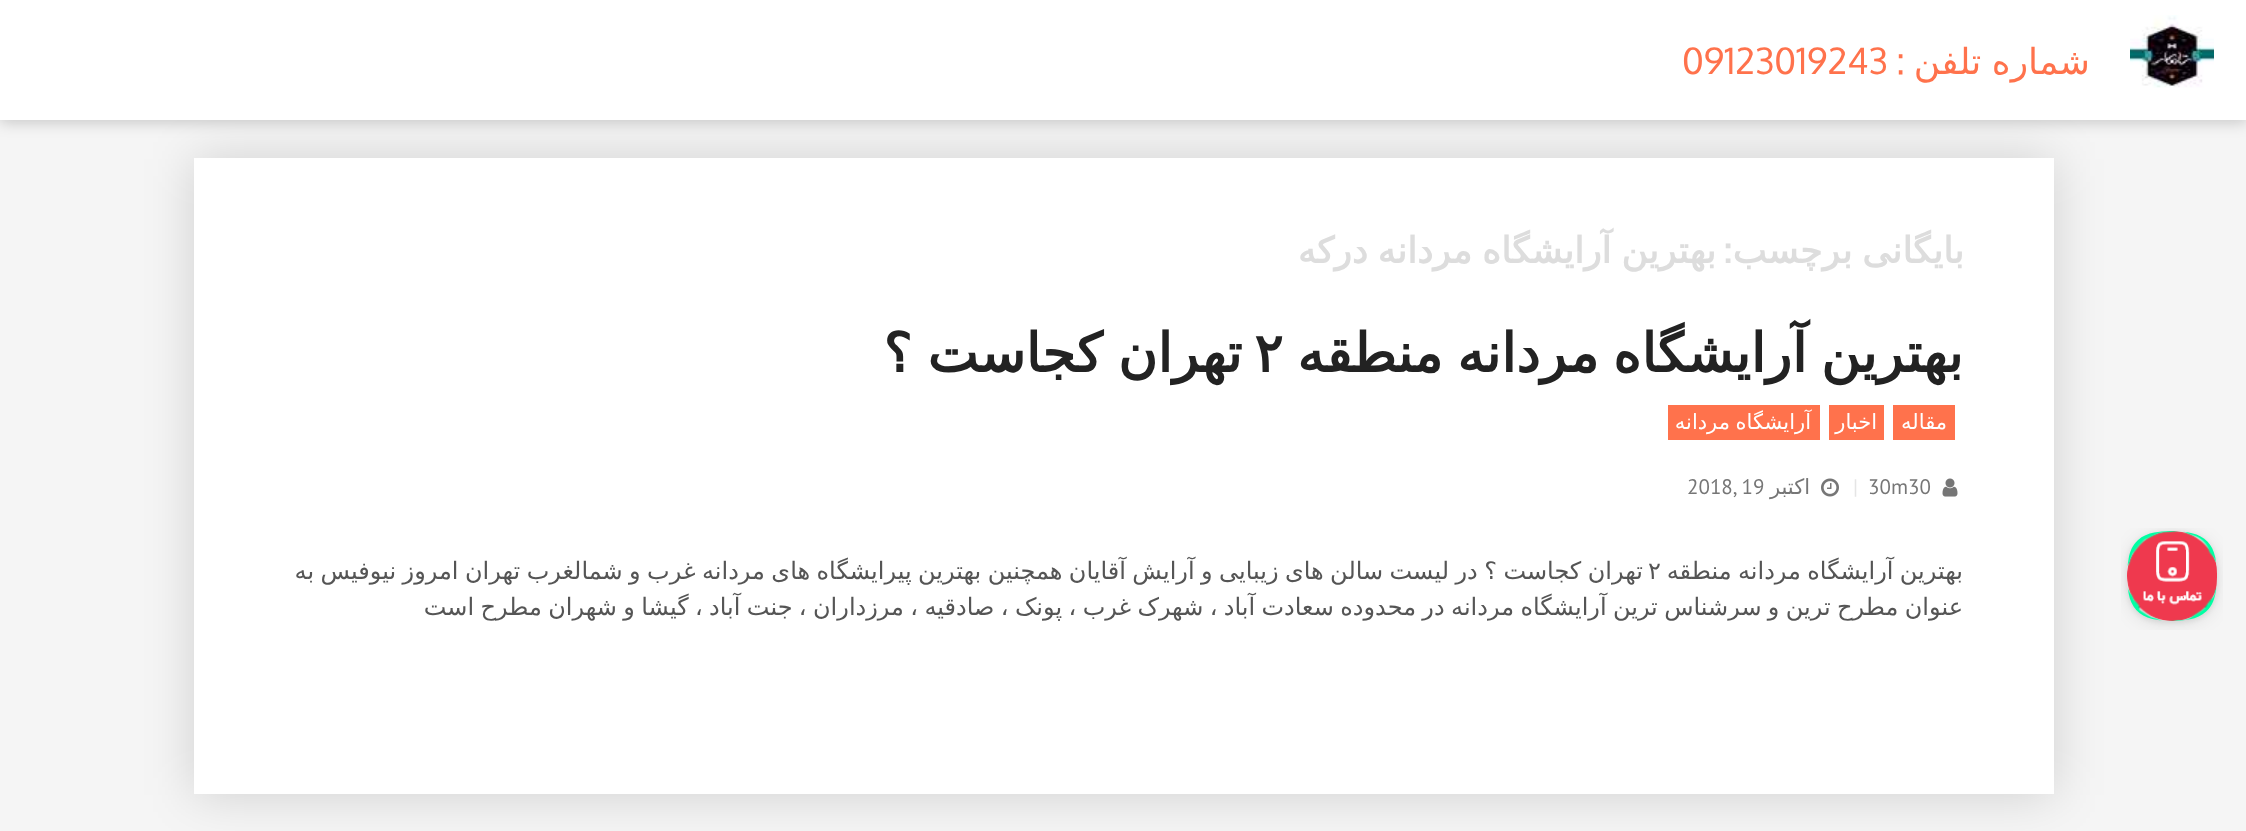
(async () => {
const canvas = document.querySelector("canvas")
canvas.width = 2246
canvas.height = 831
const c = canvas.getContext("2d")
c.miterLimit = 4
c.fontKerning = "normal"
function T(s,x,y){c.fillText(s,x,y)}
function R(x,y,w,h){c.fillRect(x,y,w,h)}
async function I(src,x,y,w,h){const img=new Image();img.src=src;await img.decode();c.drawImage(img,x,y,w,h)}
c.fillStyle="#f5f5f5"
R(0,0,2246,831)
c.fillStyle="#00000026"
c.filter="blur(25px)"
c.beginPath()
c.rect(194,159,1860,636)
c.fill()
c.filter="none"
await I("1.png",2121,528,102,102)
c.fillStyle="#00000033"
c.filter="blur(7.5px)"
c.beginPath()
c.rect(0,2,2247,120)
c.fill()
c.filter="none"
c.fillStyle="#fff"
R(0,0,2246,120)
await I("2.png",2130,15,84,73)
c.wordSpacing="-1px"
c.direction="rtl"
c.font="36px DejaVu Sans"
c.fillStyle="#ff724c"
T("شماره تلفن",2090,74)
c.wordSpacing="0px"
c.font="36px Oxygen"
T(":",1905,74)
c.direction="ltr"
T("09123019243",1682,74)
c.fillStyle="#fff"
R(194,158,1860,636)
c.wordSpacing="-1.5px"
c.direction="rtl"
c.font="bold 36px DejaVu Sans"
c.fillStyle="#ddd"
T("بایگانی برچسب",1964,263)
c.wordSpacing="0px"
c.font="bold 36px Oxygen"
T(":",1732,263)
c.wordSpacing="-1.5px"
c.font="bold 36px DejaVu Sans"
T("بهترین آرایشگاه مردانه درکه",1716,263)
c.wordSpacing="-3px"
c.font="bold 54px DejaVu Sans"
c.fillStyle="#222"
T("بهترین آرایشگاه مردانه منطقه",1963,372)
c.wordSpacing="0px"
c.direction="ltr"
T("۲",1254,372)
c.wordSpacing="-2px"
c.direction="rtl"
T("تهران کجاست ؟",1242,372)
c.fillStyle="#ff724c"
R(1893,405,62,35)
c.wordSpacing="0px"
c.font="21px DejaVu Sans"
c.fillStyle="#fff"
T("مقاله",1947,429)
c.fillStyle="#ff724c"
R(1829,405,55,35)
c.fillStyle="#fff"
T("اخبار",1877,429)
c.fillStyle="#ff724c"
R(1668,405,152,35)
c.wordSpacing="-1px"
c.fillStyle="#fff"
T("آرایشگاه مردانه",1811,429)
await I("3.png",1942,478,16,19)
c.wordSpacing="0px"
c.direction="ltr"
c.font="21px PT Sans"
c.fillStyle="#767676"
T("30m30",1868,494)
c.fillStyle="#e5e5e5"
T("|",1853,494)
await I("4.png",1821,478,18,19)
c.direction="rtl"
c.font="21px DejaVu Sans"
c.fillStyle="#767676"
T("اکتبر",1810,494)
c.direction="ltr"
c.font="21px PT Sans"
T("2018, 19",1687,494)
c.wordSpacing="-1.25px"
c.direction="rtl"
c.font="24px DejaVu Sans"
c.fillStyle="#555"
T("بهترین آرایشگاه مردانه منطقه",1963,579)
c.wordSpacing="-1.2px"
T("تهران کجاست ؟ در لیست سالن های زیبایی و آرایش آقایان همچنین بهترین پیرایشگاه های مردانه غرب و شمالغرب تهران امروز نیوفیس به",1643,579)
c.wordSpacing="0px"
c.direction="ltr"
T("۲",1648,579)
c.wordSpacing="-1.25px"
c.direction="rtl"
T("عنوان مطرح ترین و سرشناس ترین آرایشگاه مردانه در محدوده سعادت آباد ، شهرک غرب ، پونک ، صادقیه ، مرزداران ، جنت آباد ، گیشا و شهران مطرح است",1963,615)
})()
